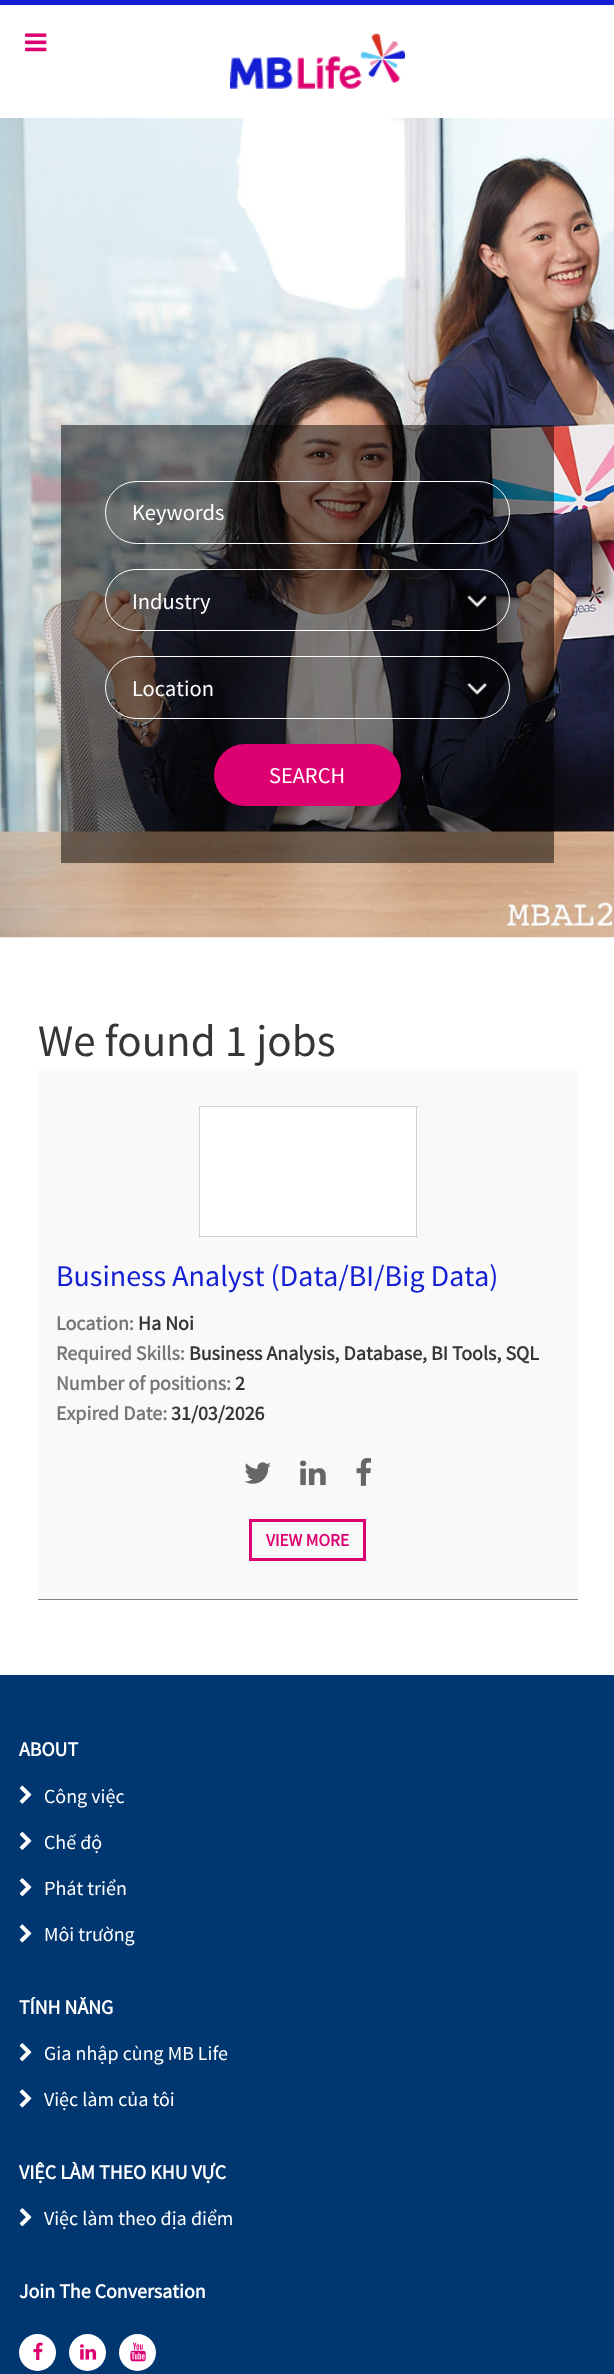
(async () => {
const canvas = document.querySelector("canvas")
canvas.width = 614
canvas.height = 2374
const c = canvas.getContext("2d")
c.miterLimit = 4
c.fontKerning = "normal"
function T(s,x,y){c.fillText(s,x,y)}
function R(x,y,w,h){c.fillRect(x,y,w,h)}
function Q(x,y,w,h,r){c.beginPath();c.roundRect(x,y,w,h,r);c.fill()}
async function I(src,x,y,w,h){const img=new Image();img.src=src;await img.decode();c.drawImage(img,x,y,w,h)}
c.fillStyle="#fff"
R(0,0,614,2374)
c.fillStyle="#141ed2"
R(0,0,614,5)
await I("1.png",25,33,22,19)
await I("2.png",230,33,175,56)
await I("3.png",0,118,614,820)
c.fillStyle="#00000080"
R(61,425,493,438)
c.beginPath()
c.roundRect(105.5,481.5,404,62,31)
c.strokeStyle="#fff"
c.stroke()
c.font="22.5px Source Sans Pro"
c.fillStyle="#fff"
T("Keywords",132,520)
c.beginPath()
c.roundRect(105.5,569.5,404,61,30.5)
c.stroke()
T("Industry",132,609)
await I("4.png",467,595,20,13)
c.beginPath()
c.roundRect(105.5,656.5,404,62,31)
c.stroke()
T("Location",132,696)
await I("5.png",467,682,20,13)
c.fillStyle="#dd0071"
Q(214,744,187,62,31)
c.fillStyle="#fff"
T("SEARCH",269,783)
c.font="45px Source Sans Pro"
c.fillStyle="#363636"
T("We found 1 jobs",38,1056)
c.fillStyle="#f9f9f9"
R(38,1069,540,530)
c.fillStyle="#808080"
R(38,1599,540,1)
c.fillStyle="#fff"
R(200,1107,218,131)
c.fillStyle="#d0d3d6"
R(199,1106,219,1)
R(416,1106,1,132)
R(199,1236,219,1)
R(199,1106,1,132)
c.font="30px Source Sans Pro"
c.fillStyle="#141ed2"
T("Business Analyst (Data/BI/Big Data)",56,1286)
c.font="bold 20px Source Sans Pro"
c.fillStyle="#777"
T("Location:",56,1330)
c.fillStyle="#363636"
T("Ha Noi",138,1330)
c.fillStyle="#777"
T("Required Skills:",56,1360)
c.fillStyle="#363636"
T("Business Analysis, Database, BI Tools, SQL",189,1360)
c.fillStyle="#777"
T("Number of positions:",56,1390)
c.fillStyle="#363636"
T("2",235,1390)
c.fillStyle="#777"
T("Expired Date:",56,1420)
c.fillStyle="#363636"
T("31/03/2026",171,1420)
await I("6.png",244,1462,27,22)
await I("7.png",300,1460,26,26)
await I("8.png",356,1458,16,28)
c.strokeStyle="#dd0071"
c.lineWidth=3
c.strokeRect(250.5,1520.5,114,39)
c.font="bold 17.5px Source Sans Pro"
c.fillStyle="#dd0071"
T("VIEW MORE",266,1546)
c.fillStyle="#003770"
R(0,1675,614,699)
c.font="bold 20px Source Sans Pro"
c.fillStyle="#fff"
T("ABOUT",19,1756)
await I("9.png",19,1785,13,19)
c.font="20px Source Sans Pro"
T("Công việc",44,1803)
await I("10.png",19,1831,13,19)
T("Chế độ",44,1849)
await I("11.png",19,1878,13,19)
T("Phát triển",44,1895)
await I("12.png",19,1924,13,19)
T("Môi trường",44,1941)
c.font="bold 20px Source Sans Pro"
T("TÍNH NĂNG",19,2014)
await I("11.png",19,2043,13,19)
c.font="20px Source Sans Pro"
T("Gia nhập cùng MB Life",44,2060)
await I("12.png",19,2089,13,19)
T("Việc làm của tôi",44,2106)
c.font="bold 20px Source Sans Pro"
T("VIỆC LÀM THEO KHU VỰC",19,2179)
await I("11.png",19,2208,13,19)
c.font="20px Source Sans Pro"
T("Việc làm theo địa điểm",44,2225)
c.font="bold 20px Source Sans Pro"
T("Join The Conversation",19,2298)
c.beginPath()
c.arc(37.5,2352.5,18.5,0,7)
c.fill()
await I("13.png",33,2342,10,19)
c.beginPath()
c.arc(87.5,2352.5,18.5,0,7)
c.fill()
await I("14.png",80,2344,17,16)
c.beginPath()
c.arc(137.5,2352.5,18.5,0,7)
c.fill()
await I("15.png",130,2342,16,20)
})()
